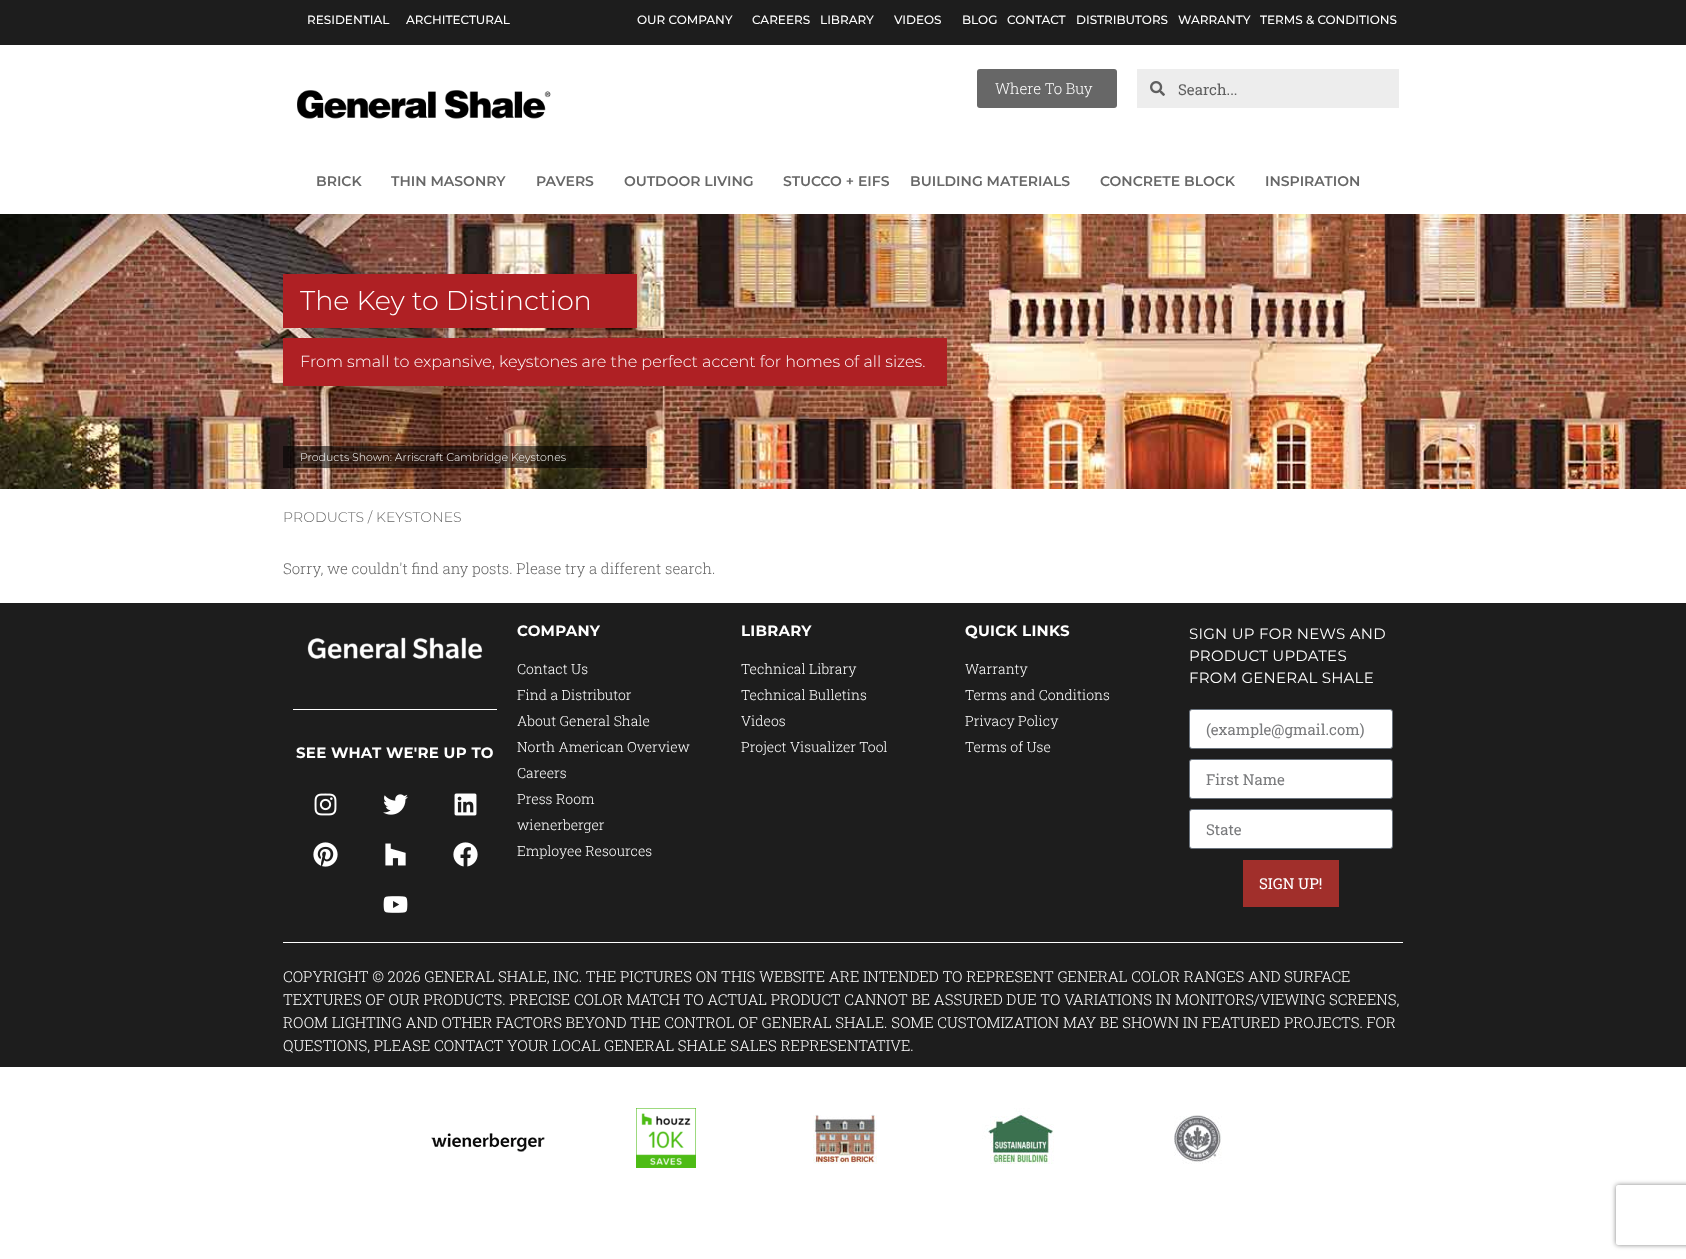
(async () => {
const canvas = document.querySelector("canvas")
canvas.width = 1686
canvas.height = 1259
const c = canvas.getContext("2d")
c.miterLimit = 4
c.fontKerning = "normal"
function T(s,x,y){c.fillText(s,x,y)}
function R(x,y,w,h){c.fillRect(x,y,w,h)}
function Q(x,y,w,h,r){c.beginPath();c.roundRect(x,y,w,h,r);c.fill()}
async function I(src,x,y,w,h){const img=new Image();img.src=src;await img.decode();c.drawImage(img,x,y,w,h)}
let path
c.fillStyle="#fff"
R(0,0,1686,1259)
c.fillStyle="#1d1d1d"
R(0,0,1686,45)
c.font="500 12px Montserrat"
c.fillStyle="#fff"
T("RESIDENTIAL",307,24)
T("ARCHITECTURAL",406,24)
T("OUR COMPANY",637,24)
T("CAREERS",752,24)
T("LIBRARY",820,24)
T("VIDEOS",894,24)
T("BLOG",962,24)
T("CONTACT",1007,24)
T("DISTRIBUTORS",1076,24)
T("WARRANTY",1178,24)
T("TERMS & CONDITIONS",1260,24)
await I("1.png",297,90,254,29)
c.fillStyle="#676767"
Q(977,69,140,39,3)
c.font="300 15px Roboto Slab"
c.fillStyle="#fff"
T("Where To Buy",995,94)
c.fillStyle="#ededed"
R(1137,69,262,39)
await I("2.png",1150,81,15,15)
c.font="15px Roboto Slab"
c.fillStyle="#5f5f5f"
T("Search...",1178,95)
c.font="600 14px Montserrat"
c.fillStyle="#676767"
T("BRICK",316,186)
T("THIN MASONRY",391,186)
T("PAVERS",536,186)
T("OUTDOOR LIVING",624,186)
T("STUCCO + EIFS",783,186)
T("BUILDING MATERIALS",910,186)
T("CONCRETE BLOCK",1100,186)
T("INSPIRATION",1265,186)
await I("3.png",0,214,1686,275)
c.fillStyle="#af2024"
R(283,274,354,54)
c.font="300 27px Montserrat"
c.fillStyle="#fff"
T("The Key to Distinction",300,310)
c.fillStyle="#af2024"
R(283,338,664,48)
c.font="300 16px Montserrat"
c.fillStyle="#fff"
T("From small to expansive, keystones are the perfect accent for homes of all sizes.",300,367)
c.fillStyle="#0000008c"
R(283,446,364,22)
c.font="300 11px Montserrat"
c.fillStyle="#fff"
T("Products Shown: Arriscraft Cambridge Keystones",300,461)
c.letterSpacing="0.1px"
c.font="300 14px Montserrat"
c.fillStyle="#676767"
T("PRODUCTS / KEYSTONES",283,522)
c.letterSpacing="0px"
c.font="300 15px Roboto Slab"
T("Sorry, we couldn't find any posts. Please try a different search.",283,574)
c.fillStyle="#1d1d1d"
R(0,603,1686,464)
await I("4.png",307,637,176,22)
c.fillStyle="#fff"
R(293,709,204,1)
c.letterSpacing="0.25px"
c.font="bold 15px Montserrat"
T("SEE WHAT WE'RE UP TO",296,758)
await I("5.png",314,793,23,23)
await I("6.png",383,794,25,21)
await I("7.png",454,793,23,23)
await I("8.png",313,842,25,25)
await I("9.png",385,843,21,23)
await I("10.png",453,842,25,25)
await I("11.png",383,896,25,17)
T("COMPANY",517,636)
c.letterSpacing="0px"
c.font="300 14px Roboto Slab"
T("Contact Us",517,674)
T("Find a Distributor",517,700)
T("About General Shale",517,726)
T("North American Overview",517,752)
T("Careers",517,778)
T("Press Room",517,804)
T("wienerberger",517,830)
T("Employee Resources",517,856)
c.letterSpacing="0.25px"
c.font="bold 15px Montserrat"
T("LIBRARY",741,636)
c.letterSpacing="0px"
c.font="300 14px Roboto Slab"
T("Technical Library",741,674)
T("Technical Bulletins",741,700)
T("Videos",741,726)
T("Project Visualizer Tool",741,752)
c.letterSpacing="0.25px"
c.font="bold 15px Montserrat"
T("QUICK LINKS",965,636)
c.letterSpacing="0px"
c.font="300 14px Roboto Slab"
T("Warranty",965,674)
T("Terms and Conditions",965,700)
T("Privacy Policy",965,726)
T("Terms of Use",965,752)
c.letterSpacing="0.25px"
c.font="15px Montserrat"
T("SIGN UP FOR NEWS AND",1189,639)
T("PRODUCT UPDATES",1189,661)
T("FROM GENERAL SHALE",1189,683)
c.beginPath()
c.roundRect(1189.5,709.5,203,39,2.5)
c.fill()
c.strokeStyle="#69727d"
c.stroke()
c.letterSpacing="0px"
c.font="15px Roboto Slab"
c.fillStyle="#797a7c"
T("(example@gmail.com)",1206,735)
c.fillStyle="#fff"
c.beginPath()
c.roundRect(1189.5,759.5,203,39,2.5)
c.fill()
c.stroke()
c.fillStyle="#797a7c"
T("First Name",1206,785)
c.fillStyle="#fff"
c.beginPath()
c.roundRect(1189.5,809.5,203,39,2.5)
c.fill()
c.stroke()
c.fillStyle="#797a7c"
T("State",1206,835)
c.fillStyle="#a12f2b"
R(1243,860,96,47)
c.fillStyle="#fff"
T("SIGN UP!",1259,889)
R(283,942,1120,1)
c.font="300 15px Roboto Slab"
T("COPYRIGHT © 2026 GENERAL SHALE, INC. THE PICTURES ON THIS WEBSITE ARE INTENDED TO REPRESENT GENERAL COLOR RANGES AND SURFACE",283,982)
T("TEXTURES OF OUR PRODUCTS. PRECISE COLOR MATCH TO ACTUAL PRODUCT CANNOT BE ASSURED DUE TO VARIATIONS IN MONITORS/VIEWING SCREENS,",283,1005)
T("ROOM LIGHTING AND OTHER FACTORS BEYOND THE CONTROL OF GENERAL SHALE. SOME CUSTOMIZATION MAY BE SHOWN IN FEATURED PROJECTS. FOR",283,1028)
T("QUESTIONS, PLEASE CONTACT YOUR LOCAL GENERAL SHALE SALES REPRESENTATIVE.",283,1051)
await I("12.png",431,1133,114,19)
await I("13.png",636,1108,60,60)
await I("14.png",813,1114,64,50)
await I("15.png",982,1108,72,56)
await I("16.png",1174,1115,48,49)
c.save()
path = new Path2D("M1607 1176h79v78h-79zm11 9h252c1 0 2 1 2 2v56c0 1-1 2-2 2h-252c-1 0-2-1-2-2v-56c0-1 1-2 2-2z")
c.clip(path,"evenodd")
c.fillStyle="#808080"
c.filter="blur(2.5px)"
c.beginPath()
c.roundRect(1616,1185,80,60,2)
c.fill()
c.filter="none"
c.restore()
})()
